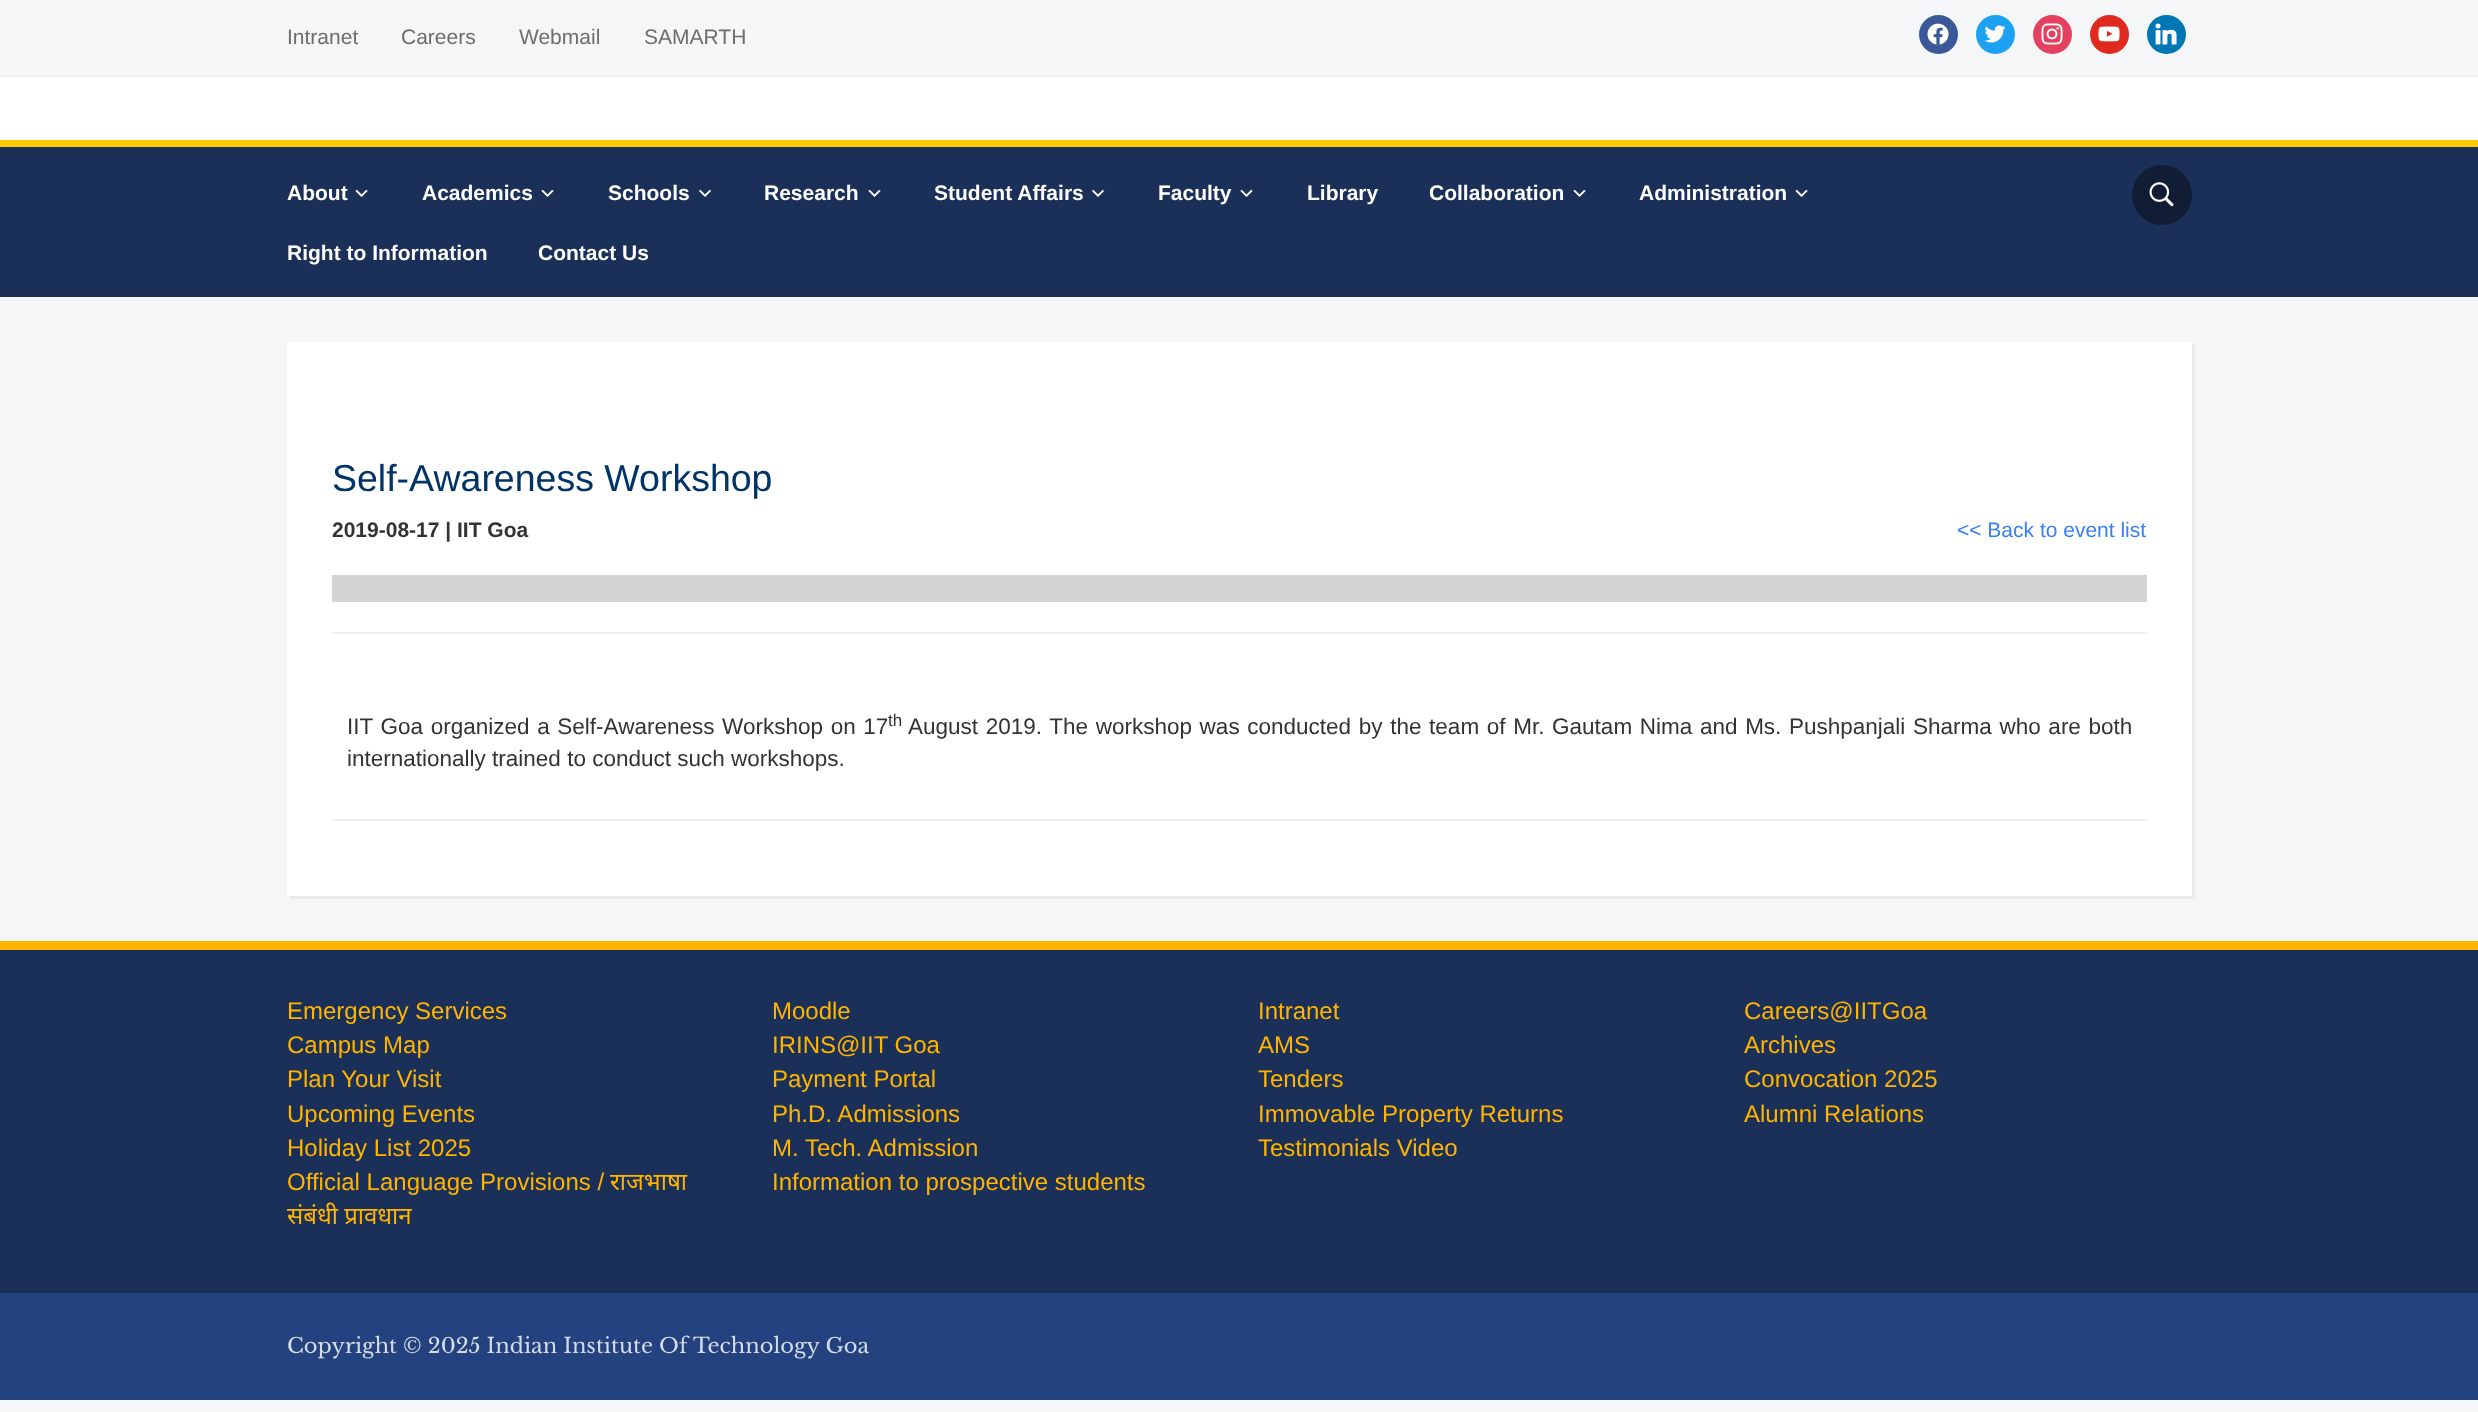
(async () => {
const canvas = document.querySelector("canvas")
canvas.width = 2478
canvas.height = 1412
const c = canvas.getContext("2d")
c.miterLimit = 4
c.fontKerning = "normal"
function T(s,x,y){c.fillText(s,x,y)}
function R(x,y,w,h){c.fillRect(x,y,w,h)}
async function I(src,x,y,w,h){const img=new Image();img.src=src;await img.decode();c.drawImage(img,x,y,w,h)}
let path
c.fillStyle="#f4f6f8"
R(0,0,2478,1412)
c.fillStyle="#fff"
R(0,77,2478,63)
c.fillStyle="#f0f0f0"
R(0,75,2478,2)
c.font="21px Liberation Sans"
c.fillStyle="#6d6d6d"
T("Intranet",287,44)
T("Careers",401,44)
T("Webmail",519,44)
T("SAMARTH",644,44)
c.fillStyle="#3b5998"
c.beginPath()
c.arc(1938.5,34.5,19.5,0,7)
c.fill()
await I("1.png",1927,23,22,22)
c.fillStyle="#1da1f2"
c.beginPath()
c.arc(1995.5,34.5,19.5,0,7)
c.fill()
await I("2.png",1984,25,22,18)
c.fillStyle="#e4405f"
c.beginPath()
c.arc(2052.5,34.5,19.5,0,7)
c.fill()
await I("3.png",2041,23,22,22)
c.fillStyle="#e02a20"
c.beginPath()
c.arc(2109.5,34.5,19.5,0,7)
c.fill()
await I("4.png",2098,26,22,16)
c.fillStyle="#0077b5"
c.beginPath()
c.arc(2166.5,34.5,19.5,0,7)
c.fill()
await I("5.png",2155,23,22,22)
c.fillStyle="#1b3058"
R(0,147,2478,150)
c.fillStyle="#ffcb00"
R(0,140,2478,7)
c.font="bold 21px Liberation Sans"
c.fillStyle="#fff"
T("About",287,200)
await I("6.png",355,190,13,7)
T("Academics",422,200)
await I("6.png",541,190,13,7)
T("Schools",608,200)
await I("7.png",698,190,14,7)
T("Research",764,200)
await I("6.png",868,190,13,7)
T("Student Affairs",934,200)
await I("7.png",1091,190,14,7)
T("Faculty",1158,200)
await I("6.png",1240,190,13,7)
T("Library",1307,200)
T("Collaboration",1429,200)
await I("6.png",1573,190,13,7)
T("Administration",1639,200)
await I("6.png",1795,190,13,7)
T("Right to Information",287,260)
T("Contact Us",538,260)
c.fillStyle="#101d35"
c.beginPath()
c.arc(2162,195,30,0,7)
c.fill()
await I("8.png",2149,182,25,25)
c.fillStyle="#e8eaec"
path = new Path2D("M290 896v3h1905v-554h-3v551z")
c.fill(path)
c.fillStyle="#fff"
R(287,342,1905,554)
c.font="37.5px Liberation Sans"
c.fillStyle="#036"
T("Self-Awareness Workshop",332,491)
c.font="21px Liberation Sans"
c.fillStyle="#3880f5"
T("<< Back to event list",1957,537)
c.font="bold 21px Liberation Sans"
c.fillStyle="#333"
T("2019-08-17 | IIT Goa",332,537)
c.fillStyle="#d3d3d3"
R(332,575,1815,27)
c.fillStyle="#eee"
R(332,632,1815,2)
c.wordSpacing="1.4px"
c.font="22.5px Liberation Sans"
c.fillStyle="#333"
T("IIT Goa organized a Self-Awareness Workshop on 17",347,734)
c.wordSpacing="0px"
c.font="17px Liberation Sans"
T("th",888,726)
c.wordSpacing="1.4px"
c.font="22.5px Liberation Sans"
T("August 2019. The workshop was conducted by the team of Mr. Gautam Nima and Ms. Pushpanjali Sharma who are both",908,734)
c.wordSpacing="0px"
T("internationally trained to conduct such workshops.",347,766)
c.fillStyle="#eee"
R(332,819,1815,2)
c.fillStyle="#1b3058"
R(0,950,2478,343)
c.fillStyle="#ffb400"
R(0,941,2478,9)
c.font="24px Liberation Sans"
T("Emergency Services",287,1019)
T("Campus Map",287,1053)
T("Plan Your Visit",287,1087)
T("Upcoming Events",287,1122)
T("Holiday List 2025",287,1156)
T("Official Language Provisions /",287,1190)
c.font="24px Noto Sans"
T("राजभाषा",610,1190)
T("संबंधी प्रावधान",287,1224)
c.font="24px Liberation Sans"
T("Moodle",772,1019)
T("IRINS@IIT Goa",772,1053)
T("Payment Portal",772,1087)
T("Ph.D. Admissions",772,1122)
T("M. Tech. Admission",772,1156)
T("Information to prospective students",772,1190)
T("Intranet",1258,1019)
T("AMS",1258,1053)
T("Tenders",1258,1087)
T("Immovable Property Returns",1258,1122)
T("Testimonials Video",1258,1156)
T("Careers@IITGoa",1744,1019)
T("Archives",1744,1053)
T("Convocation 2025",1744,1087)
T("Alumni Relations",1744,1122)
c.fillStyle="#23427f"
R(0,1293,2478,107)
c.font="21px Libre Baskerville"
c.fillStyle="#d3dde6"
T("Copyright © 2025 Indian Institute Of Technology Goa",287,1353)
})()
